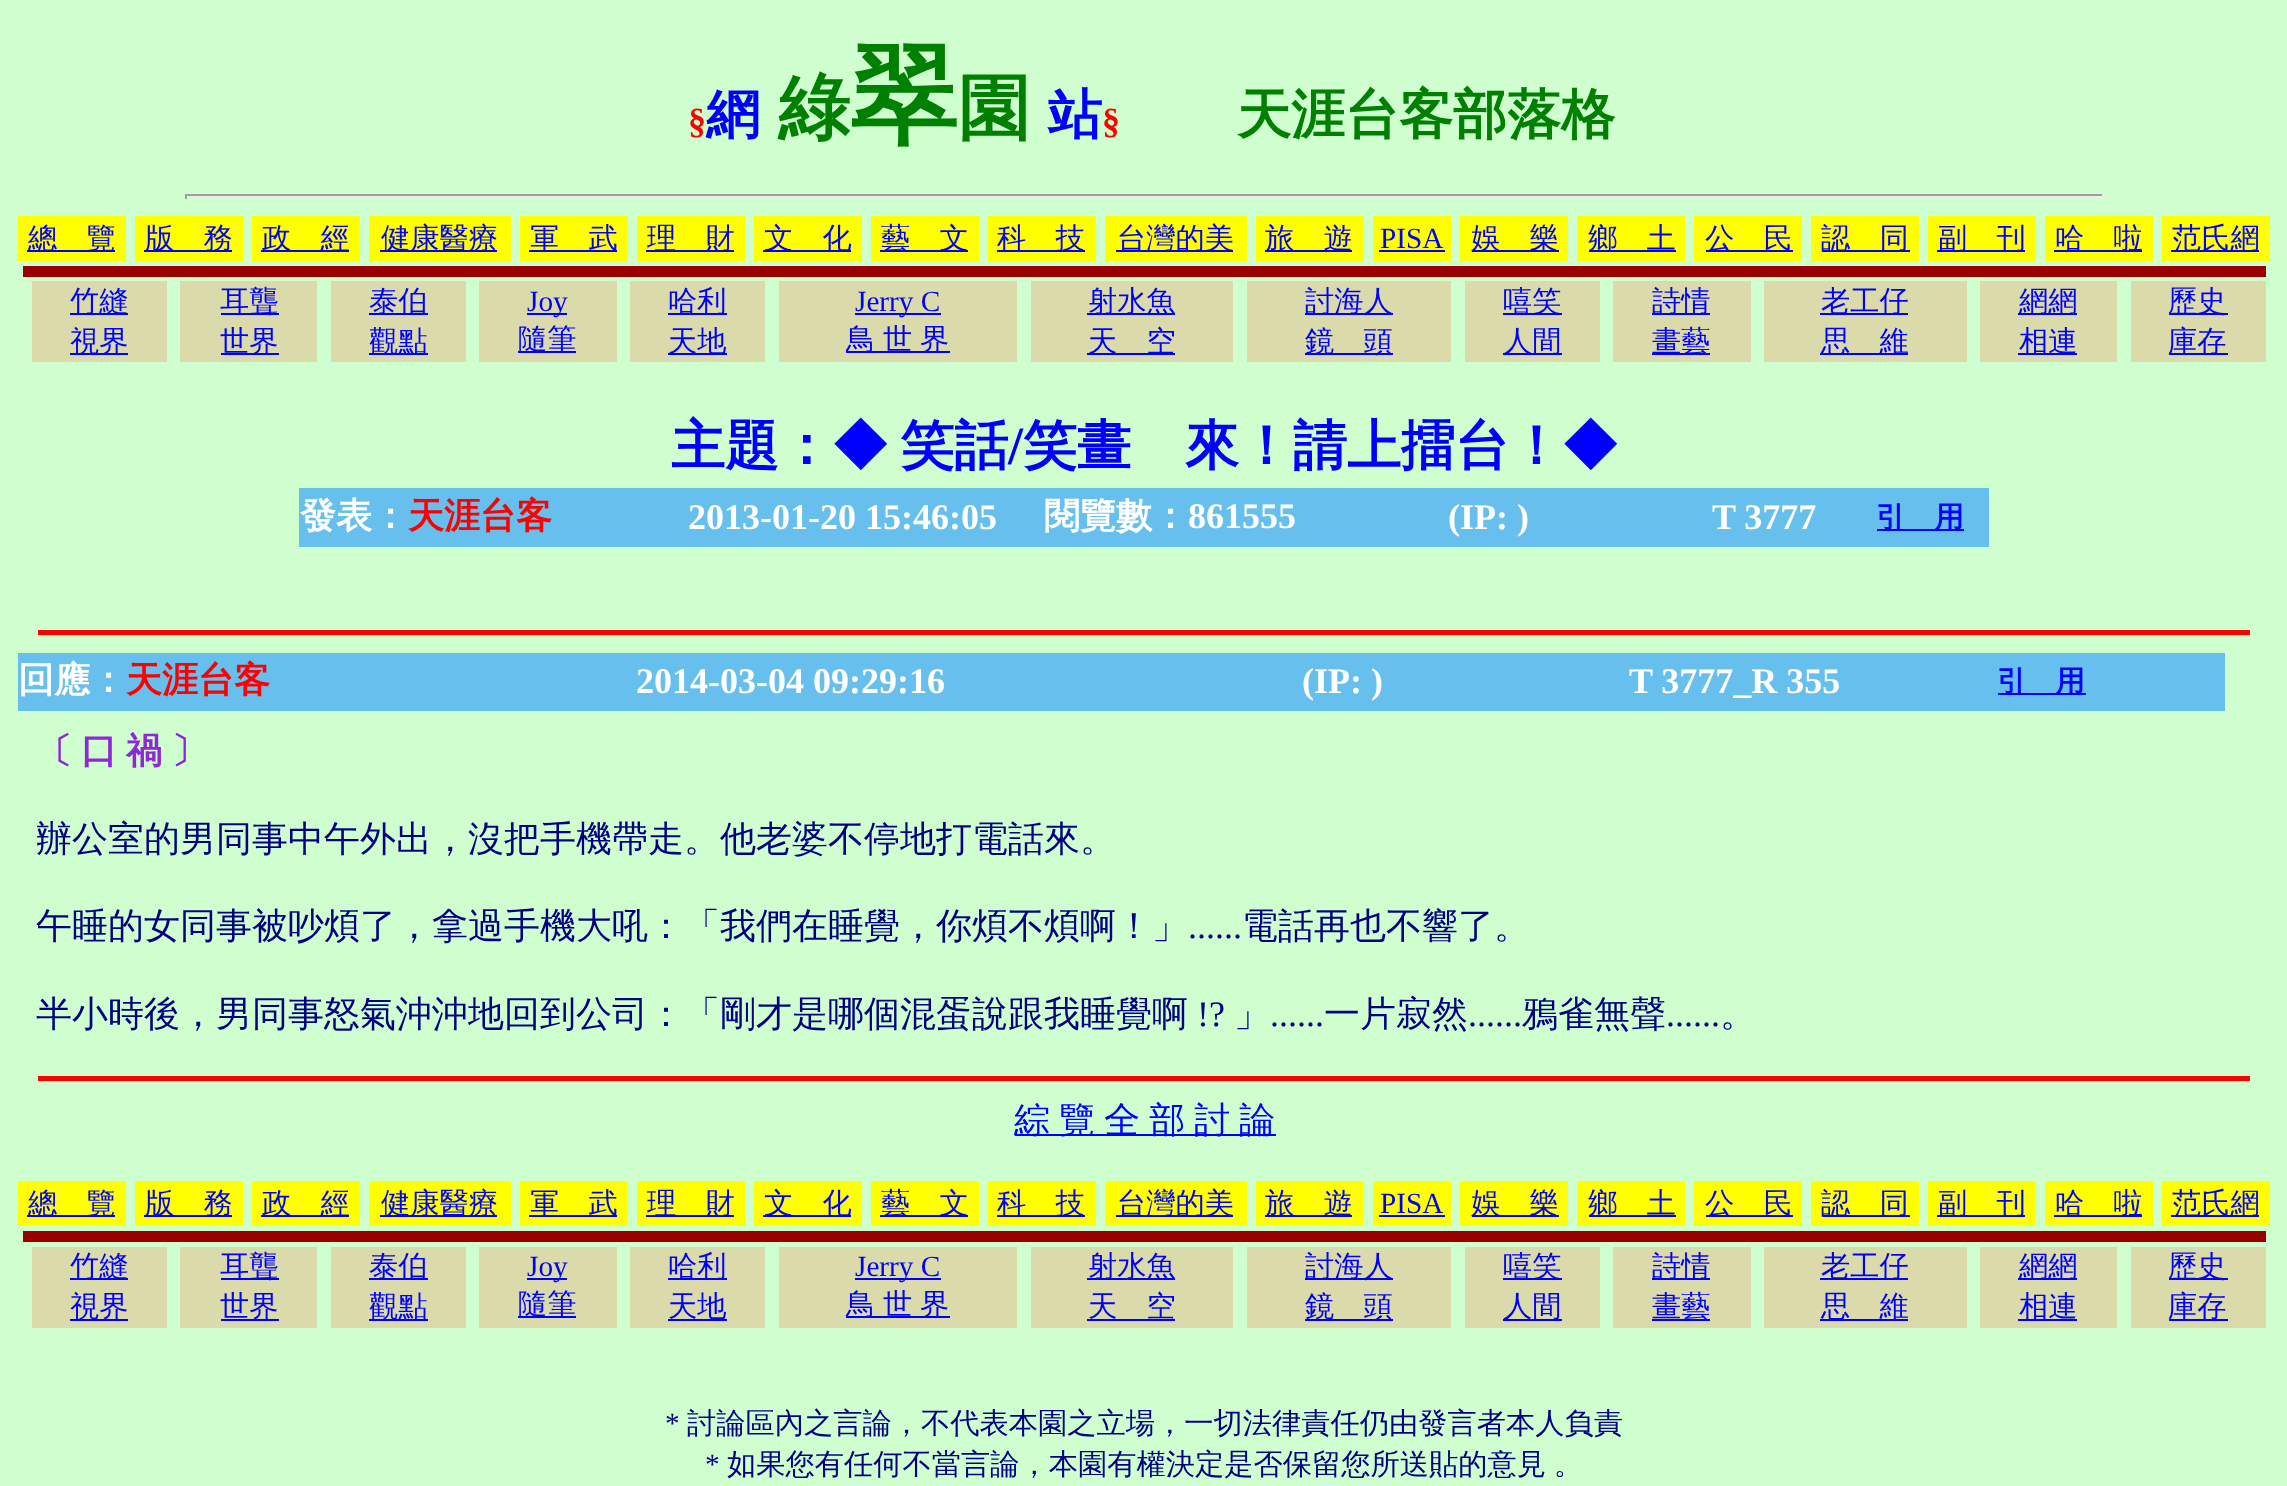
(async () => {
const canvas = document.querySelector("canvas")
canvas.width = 2287
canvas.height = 1486
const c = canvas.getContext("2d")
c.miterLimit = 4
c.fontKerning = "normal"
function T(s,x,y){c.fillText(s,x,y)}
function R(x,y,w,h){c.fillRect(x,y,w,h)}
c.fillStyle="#cfffcf"
R(0,0,2287,1486)
c.font="bold 36px Liberation Serif"
c.fillStyle="#f00"
T("§",688,133)
c.font="bold 54px WenQuanYi Zen Hei"
c.fillStyle="#00f"
T("網",706,133)
c.font="bold 72px WenQuanYi Zen Hei"
c.fillStyle="#008000"
T("綠",778,133)
c.font="bold 108px WenQuanYi Zen Hei"
T("翠",850,133)
c.font="bold 72px WenQuanYi Zen Hei"
T("園",958,133)
c.font="bold 54px WenQuanYi Zen Hei"
c.fillStyle="#00f"
T("站",1048,133)
c.font="bold 36px Liberation Serif"
c.fillStyle="#f00"
T("§",1102,133)
c.font="bold 54px WenQuanYi Zen Hei"
c.fillStyle="#008000"
T("天涯台客部落格",1237,133)
c.fillStyle="#9f9f9f"
R(185,194,1919,2)
c.fillStyle="#eee"
R(2102,194,2,5)
R(185,196,1919,2)
c.fillStyle="#9f9f9f"
R(185,194,2,5)
c.fillStyle="#ff0"
R(18,216,108,45)
c.fillStyle="#00f"
R(27,250,88,2)
c.font="500 29.25px WenQuanYi Zen Hei"
T("總　覽",28,248)
c.fillStyle="#ff0"
R(135,216,108,45)
c.fillStyle="#00f"
R(144,250,88,2)
T("版　務",145,248)
c.fillStyle="#ff0"
R(252,216,108,45)
c.fillStyle="#00f"
R(261,250,88,2)
T("政　經",262,248)
c.fillStyle="#ff0"
R(369,216,142,45)
c.fillStyle="#00f"
R(380,250,117,2)
T("健康醫療",381,248)
c.fillStyle="#ff0"
R(520,216,108,45)
c.fillStyle="#00f"
R(529,250,88,2)
T("軍　武",530,248)
c.fillStyle="#ff0"
R(637,216,108,45)
c.fillStyle="#00f"
R(646,250,88,2)
T("理　財",647,248)
c.fillStyle="#ff0"
R(754,216,108,45)
c.fillStyle="#00f"
R(763,250,88,2)
T("文　化",764,248)
c.fillStyle="#ff0"
R(871,216,108,45)
c.fillStyle="#00f"
R(880,250,88,2)
T("藝　文",881,248)
c.fillStyle="#ff0"
R(988,216,108,45)
c.fillStyle="#00f"
R(997,250,88,2)
T("科　技",997,248)
c.fillStyle="#ff0"
R(1105,216,142,45)
c.fillStyle="#00f"
R(1116,250,117,2)
T("台灣的美",1117,248)
c.fillStyle="#ff0"
R(1256,216,108,45)
c.fillStyle="#00f"
R(1265,250,87,2)
T("旅　遊",1265,248)
c.fillStyle="#ff0"
R(1373,216,78,45)
c.font="29.25px Liberation Serif"
c.fillStyle="#00f"
T("PISA",1380,248)
R(1379,250,66,2)
c.fillStyle="#ff0"
R(1460,216,108,45)
c.fillStyle="#00f"
R(1472,250,87,2)
c.font="500 29.25px WenQuanYi Zen Hei"
T("娛　樂",1471,248)
c.fillStyle="#ff0"
R(1577,216,108,45)
c.fillStyle="#00f"
R(1589,250,87,2)
T("鄉　土",1588,248)
c.fillStyle="#ff0"
R(1694,216,108,45)
c.fillStyle="#00f"
R(1706,250,87,2)
T("公　民",1705,248)
c.fillStyle="#ff0"
R(1811,216,108,45)
c.fillStyle="#00f"
R(1823,250,87,2)
T("認　同",1821,248)
c.fillStyle="#ff0"
R(1928,216,108,45)
c.fillStyle="#00f"
R(1937,250,88,2)
T("副　刊",1938,248)
c.fillStyle="#ff0"
R(2045,216,108,45)
c.fillStyle="#00f"
R(2054,250,88,2)
T("哈　啦",2055,248)
c.fillStyle="#ff0"
R(2162,216,108,45)
c.fillStyle="#00f"
R(2171,250,88,2)
T("范氏網",2172,248)
c.fillStyle="#900"
R(23,266,2243,11)
c.fillStyle="#dadaaa"
R(32,281,135,81)
c.fillStyle="#00f"
R(70,313,58,2)
T("竹縫",70,311)
R(70,353,58,2)
T("視界",70,351)
c.fillStyle="#dadaaa"
R(180,281,137,81)
c.fillStyle="#00f"
R(221,313,58,2)
T("耳聾",220,311)
R(221,353,58,2)
T("世界",220,351)
c.fillStyle="#dadaaa"
R(331,281,135,81)
c.fillStyle="#00f"
R(369,313,59,2)
T("泰伯",369,311)
R(369,353,59,2)
T("觀點",369,351)
c.fillStyle="#dadaaa"
R(479,281,138,81)
c.fillStyle="#00f"
R(527,313,40,2)
c.font="29.25px Liberation Serif"
T("Joy",527,311)
R(518,351,58,2)
c.font="500 29.25px WenQuanYi Zen Hei"
T("隨筆",518,349)
c.fillStyle="#dadaaa"
R(630,281,135,81)
c.fillStyle="#00f"
R(668,313,59,2)
T("哈利",668,311)
R(668,353,59,2)
T("天地",668,351)
c.fillStyle="#dadaaa"
R(779,281,238,81)
c.fillStyle="#00f"
R(855,313,86,2)
c.font="29.25px Liberation Serif"
T("Jerry C",855,311)
R(846,351,104,2)
c.wordSpacing="-1px"
c.font="500 29.25px WenQuanYi Zen Hei"
T("鳥 世 界",846,349)
c.fillStyle="#dadaaa"
R(1031,281,202,81)
c.fillStyle="#00f"
R(1087,313,88,2)
c.wordSpacing="0px"
T("射水魚",1088,311)
R(1087,353,88,2)
T("天　空",1088,351)
c.fillStyle="#dadaaa"
R(1247,281,204,81)
c.fillStyle="#00f"
R(1305,313,88,2)
T("討海人",1305,311)
R(1305,353,88,2)
T("鏡　頭",1305,351)
c.fillStyle="#dadaaa"
R(1465,281,135,81)
c.fillStyle="#00f"
R(1503,313,59,2)
T("嘻笑",1503,311)
R(1503,353,59,2)
T("人間",1503,351)
c.fillStyle="#dadaaa"
R(1613,281,138,81)
c.fillStyle="#00f"
R(1652,313,58,2)
T("詩情",1652,311)
R(1652,353,58,2)
T("畫藝",1652,351)
c.fillStyle="#dadaaa"
R(1764,281,203,81)
c.fillStyle="#00f"
R(1820,313,88,2)
T("老工仔",1821,311)
R(1820,353,88,2)
T("思　維",1821,351)
c.fillStyle="#dadaaa"
R(1980,281,137,81)
c.fillStyle="#00f"
R(2018,313,59,2)
T("網網",2019,311)
R(2018,353,59,2)
T("相連",2019,351)
c.fillStyle="#dadaaa"
R(2131,281,135,81)
c.fillStyle="#00f"
R(2169,313,59,2)
T("歷史",2168,311)
R(2169,353,59,2)
T("庫存",2168,351)
c.wordSpacing="-3px"
c.font="bold 54px WenQuanYi Zen Hei"
T("主題：◆ 笑話",671,464)
c.wordSpacing="0px"
c.font="bold 54px Liberation Serif"
T("/",1008,464)
c.font="bold 54px WenQuanYi Zen Hei"
T("笑畫　來！請上擂台！◆",1023,464)
c.fillStyle="#67bfed"
R(299,488,1690,59)
c.font="bold 36px WenQuanYi Zen Hei"
c.fillStyle="#fff"
T("發表：",300,528)
c.fillStyle="#f00"
T("天涯台客",408,528)
c.font="bold 36px Liberation Serif"
c.fillStyle="#fff"
T("2013-01-20 15:46:05",688,529)
c.font="bold 36px WenQuanYi Zen Hei"
T("閱覽數：",1044,528)
c.font="bold 36px Liberation Serif"
T("861555",1188,528)
T("(IP: )",1448,529)
T("T 3777",1712,529)
c.fillStyle="#00f"
R(1877,529,87,2)
c.font="bold 29.25px WenQuanYi Zen Hei"
T("引　用",1876,527)
c.fillStyle="#f00"
R(38,630,2212,5)
c.fillStyle="#67bfed"
R(18,653,2207,58)
c.font="bold 36px WenQuanYi Zen Hei"
c.fillStyle="#fff"
T("回應：",18,692)
c.fillStyle="#f00"
T("天涯台客",126,692)
c.font="bold 36px Liberation Serif"
c.fillStyle="#fff"
T("2014-03-04 09:29:16",636,693)
T("(IP: )",1302,693)
T("T 3777_R 355",1629,693)
c.fillStyle="#00f"
R(1998,693,88,2)
c.font="bold 29.25px WenQuanYi Zen Hei"
T("引　用",1997,691)
c.wordSpacing="-1.75px"
c.font="bold 36px WenQuanYi Zen Hei"
c.fillStyle="#8e27d8"
T("〔 口 禍 〕",36,763)
c.wordSpacing="0px"
c.font="500 36px WenQuanYi Zen Hei"
c.fillStyle="#000080"
T("辦公室的男同事中午外出，沒把手機帶走。他老婆不停地打電話來。",36,851)
T("午睡的女同事被吵煩了，拿過手機大吼：「我們在睡覺，你煩不煩啊！」",36,938)
c.font="36px Liberation Serif"
T("......",1188,938)
c.font="500 36px WenQuanYi Zen Hei"
T("電話再也不響了。",1242,938)
T("半小時後，男同事怒氣沖沖地回到公司：「剛才是哪個混蛋說跟我睡覺啊",36,1026)
c.font="36px Liberation Serif"
T("!?",1197,1026)
c.font="500 36px WenQuanYi Zen Hei"
T("」",1234,1026)
c.font="36px Liberation Serif"
T("......",1270,1026)
c.font="500 36px WenQuanYi Zen Hei"
T("一片寂然",1324,1026)
c.font="36px Liberation Serif"
T("......",1468,1026)
c.font="500 36px WenQuanYi Zen Hei"
T("鴉雀無聲",1522,1026)
c.font="36px Liberation Serif"
T("......",1666,1026)
c.font="500 36px WenQuanYi Zen Hei"
T("。",1720,1026)
c.fillStyle="#f00"
R(38,1076,2212,5)
c.fillStyle="#00f"
R(1015,1134,261,2)
c.wordSpacing="-1.75px"
T("綜 覽 全 部 討 論",1014,1132)
c.fillStyle="#ff0"
R(18,1181,108,45)
c.fillStyle="#00f"
R(27,1215,88,2)
c.wordSpacing="0px"
c.font="500 29.25px WenQuanYi Zen Hei"
T("總　覽",28,1213)
c.fillStyle="#ff0"
R(135,1181,108,45)
c.fillStyle="#00f"
R(144,1215,88,2)
T("版　務",145,1213)
c.fillStyle="#ff0"
R(252,1181,108,45)
c.fillStyle="#00f"
R(261,1215,88,2)
T("政　經",262,1213)
c.fillStyle="#ff0"
R(369,1181,142,45)
c.fillStyle="#00f"
R(380,1215,117,2)
T("健康醫療",381,1213)
c.fillStyle="#ff0"
R(520,1181,108,45)
c.fillStyle="#00f"
R(529,1215,88,2)
T("軍　武",530,1213)
c.fillStyle="#ff0"
R(637,1181,108,45)
c.fillStyle="#00f"
R(646,1215,88,2)
T("理　財",647,1213)
c.fillStyle="#ff0"
R(754,1181,108,45)
c.fillStyle="#00f"
R(763,1215,88,2)
T("文　化",764,1213)
c.fillStyle="#ff0"
R(871,1181,108,45)
c.fillStyle="#00f"
R(880,1215,88,2)
T("藝　文",881,1213)
c.fillStyle="#ff0"
R(988,1181,108,45)
c.fillStyle="#00f"
R(997,1215,88,2)
T("科　技",997,1213)
c.fillStyle="#ff0"
R(1105,1181,142,45)
c.fillStyle="#00f"
R(1116,1215,117,2)
T("台灣的美",1117,1213)
c.fillStyle="#ff0"
R(1256,1181,108,45)
c.fillStyle="#00f"
R(1265,1215,87,2)
T("旅　遊",1265,1213)
c.fillStyle="#ff0"
R(1373,1181,78,45)
c.font="29.25px Liberation Serif"
c.fillStyle="#00f"
T("PISA",1380,1213)
R(1379,1215,66,2)
c.fillStyle="#ff0"
R(1460,1181,108,45)
c.fillStyle="#00f"
R(1472,1215,87,2)
c.font="500 29.25px WenQuanYi Zen Hei"
T("娛　樂",1471,1213)
c.fillStyle="#ff0"
R(1577,1181,108,45)
c.fillStyle="#00f"
R(1589,1215,87,2)
T("鄉　土",1588,1213)
c.fillStyle="#ff0"
R(1694,1181,108,45)
c.fillStyle="#00f"
R(1706,1215,87,2)
T("公　民",1705,1213)
c.fillStyle="#ff0"
R(1811,1181,108,45)
c.fillStyle="#00f"
R(1823,1215,87,2)
T("認　同",1821,1213)
c.fillStyle="#ff0"
R(1928,1181,108,45)
c.fillStyle="#00f"
R(1937,1215,88,2)
T("副　刊",1938,1213)
c.fillStyle="#ff0"
R(2045,1181,108,45)
c.fillStyle="#00f"
R(2054,1215,88,2)
T("哈　啦",2055,1213)
c.fillStyle="#ff0"
R(2162,1181,108,45)
c.fillStyle="#00f"
R(2171,1215,88,2)
T("范氏網",2172,1213)
c.fillStyle="#900"
R(23,1231,2243,11)
c.fillStyle="#dadaaa"
R(32,1247,135,81)
c.fillStyle="#00f"
R(70,1278,58,2)
T("竹縫",70,1276)
R(70,1319,58,2)
T("視界",70,1316)
c.fillStyle="#dadaaa"
R(180,1247,137,81)
c.fillStyle="#00f"
R(221,1278,58,2)
T("耳聾",220,1276)
R(221,1319,58,2)
T("世界",220,1316)
c.fillStyle="#dadaaa"
R(331,1247,135,81)
c.fillStyle="#00f"
R(369,1278,59,2)
T("泰伯",369,1276)
R(369,1319,59,2)
T("觀點",369,1316)
c.fillStyle="#dadaaa"
R(479,1247,138,81)
c.fillStyle="#00f"
R(527,1278,40,2)
c.font="29.25px Liberation Serif"
T("Joy",527,1276)
R(518,1316,58,2)
c.font="500 29.25px WenQuanYi Zen Hei"
T("隨筆",518,1314)
c.fillStyle="#dadaaa"
R(630,1247,135,81)
c.fillStyle="#00f"
R(668,1278,59,2)
T("哈利",668,1276)
R(668,1319,59,2)
T("天地",668,1316)
c.fillStyle="#dadaaa"
R(779,1247,238,81)
c.fillStyle="#00f"
R(855,1278,86,2)
c.font="29.25px Liberation Serif"
T("Jerry C",855,1276)
R(846,1316,104,2)
c.wordSpacing="-1px"
c.font="500 29.25px WenQuanYi Zen Hei"
T("鳥 世 界",846,1314)
c.fillStyle="#dadaaa"
R(1031,1247,202,81)
c.fillStyle="#00f"
R(1087,1278,88,2)
c.wordSpacing="0px"
T("射水魚",1088,1276)
R(1087,1319,88,2)
T("天　空",1088,1316)
c.fillStyle="#dadaaa"
R(1247,1247,204,81)
c.fillStyle="#00f"
R(1305,1278,88,2)
T("討海人",1305,1276)
R(1305,1319,88,2)
T("鏡　頭",1305,1316)
c.fillStyle="#dadaaa"
R(1465,1247,135,81)
c.fillStyle="#00f"
R(1503,1278,59,2)
T("嘻笑",1503,1276)
R(1503,1319,59,2)
T("人間",1503,1316)
c.fillStyle="#dadaaa"
R(1613,1247,138,81)
c.fillStyle="#00f"
R(1652,1278,58,2)
T("詩情",1652,1276)
R(1652,1319,58,2)
T("畫藝",1652,1316)
c.fillStyle="#dadaaa"
R(1764,1247,203,81)
c.fillStyle="#00f"
R(1820,1278,88,2)
T("老工仔",1821,1276)
R(1820,1319,88,2)
T("思　維",1821,1316)
c.fillStyle="#dadaaa"
R(1980,1247,137,81)
c.fillStyle="#00f"
R(2018,1278,59,2)
T("網網",2019,1276)
R(2018,1319,59,2)
T("相連",2019,1316)
c.fillStyle="#dadaaa"
R(2131,1247,135,81)
c.fillStyle="#00f"
R(2169,1278,59,2)
T("歷史",2168,1276)
R(2169,1319,59,2)
T("庫存",2168,1316)
c.font="29.25px Liberation Serif"
c.fillStyle="#000080"
T("*",665,1433)
c.font="500 29.25px WenQuanYi Zen Hei"
T("討論區內之言論，不代表本園之立場，一切法律責任仍由發言者本人負責",687,1433)
c.font="29.25px Liberation Serif"
T("*",705,1474)
c.wordSpacing="-1px"
c.font="500 29.25px WenQuanYi Zen Hei"
T("如果您有任何不當言論，本園有權決定是否保留您所送貼的意見 。",727,1474)
})()
